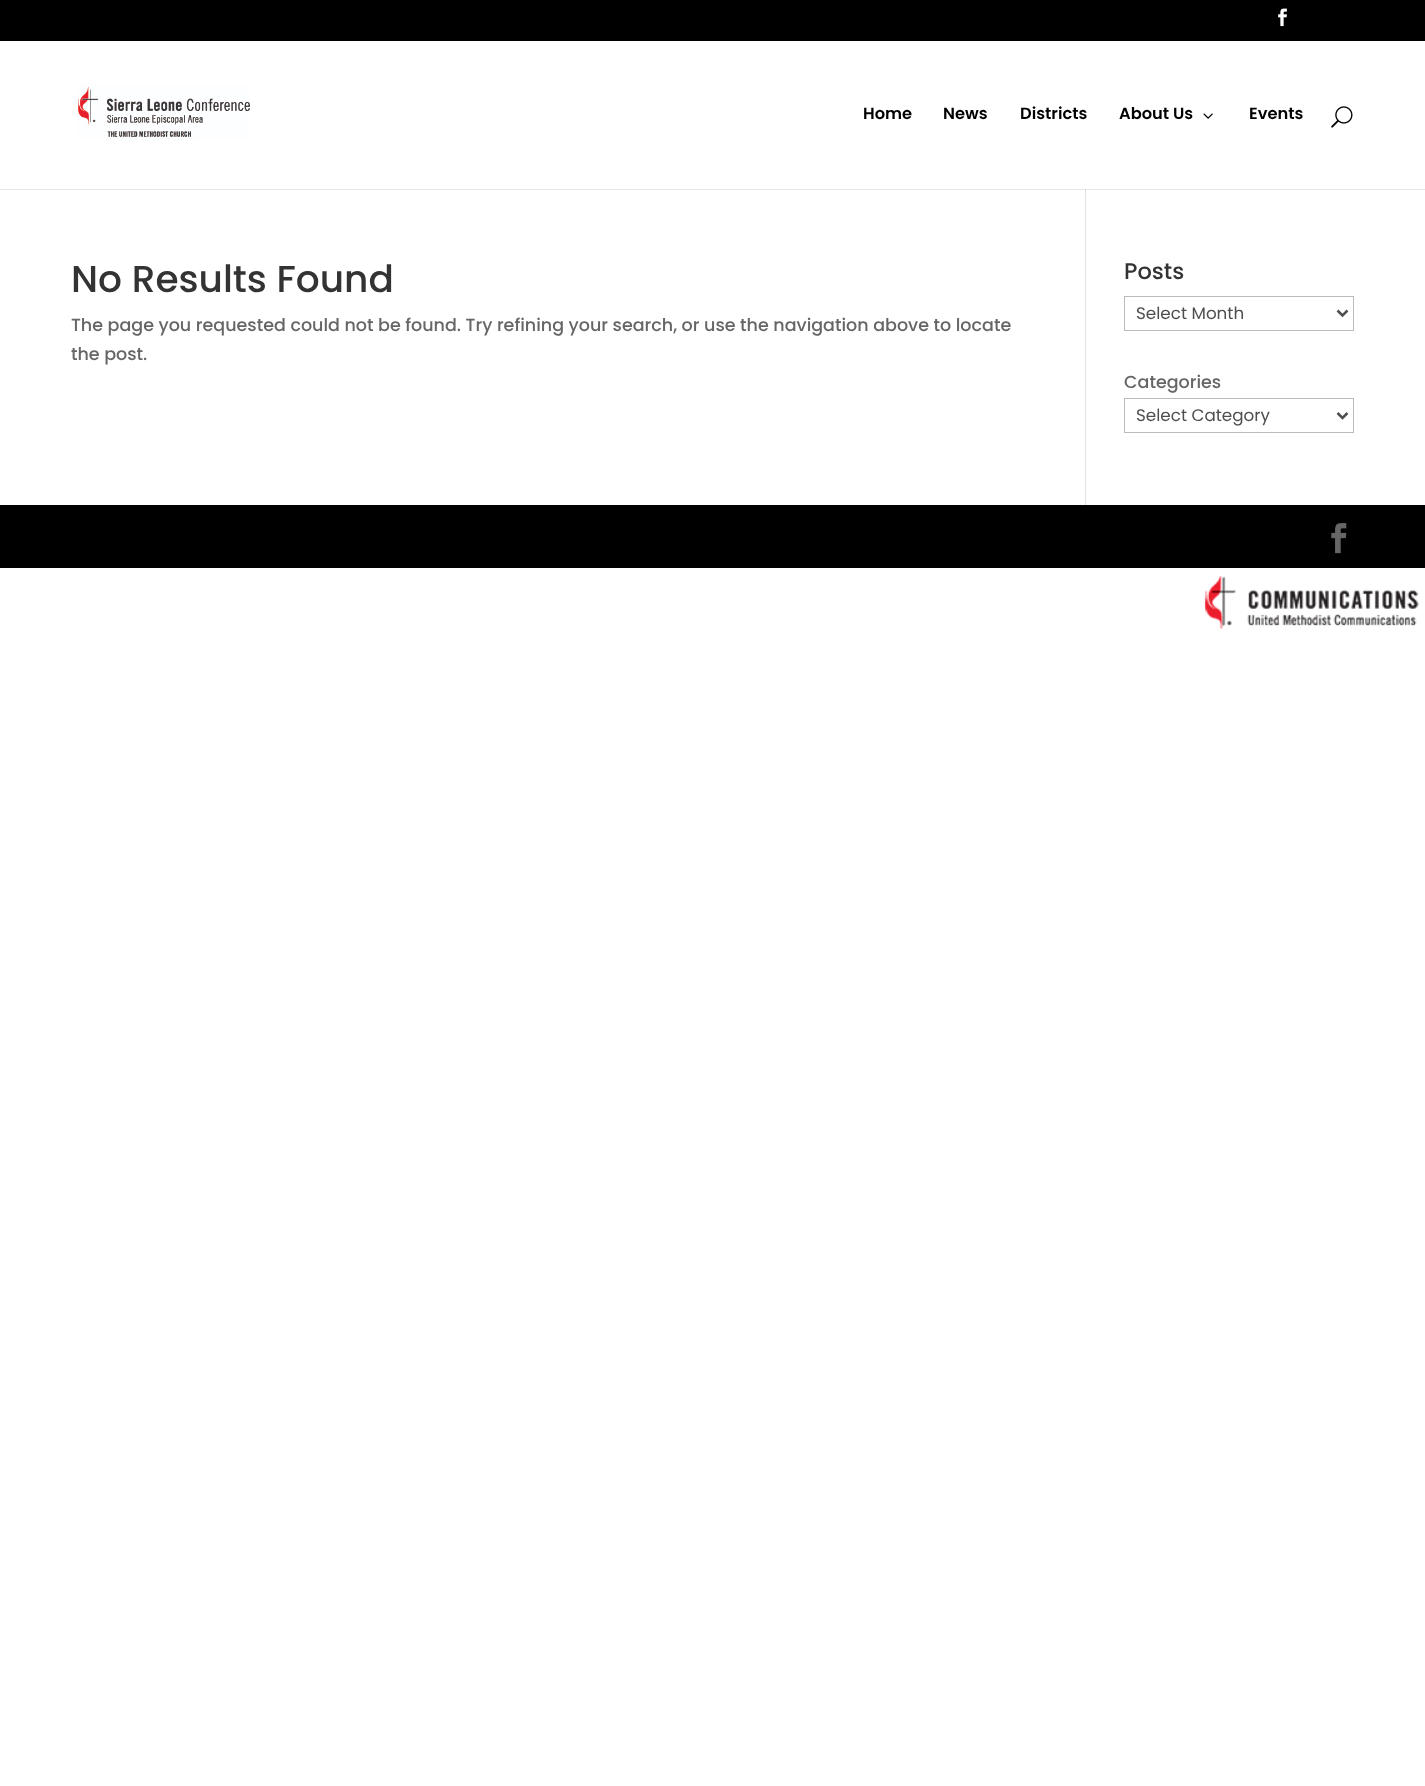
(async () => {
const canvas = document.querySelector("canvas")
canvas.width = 1425
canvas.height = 1786
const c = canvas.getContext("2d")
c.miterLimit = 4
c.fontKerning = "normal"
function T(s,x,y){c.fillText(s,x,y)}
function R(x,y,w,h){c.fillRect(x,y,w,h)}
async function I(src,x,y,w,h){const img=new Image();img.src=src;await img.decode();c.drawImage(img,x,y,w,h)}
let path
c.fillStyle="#fff"
R(0,0,1425,1786)
c.fillStyle="#e6e6e6"
R(0,189,1425,1)
c.fillStyle="#000"
R(0,0,1425,41)
await I("1.png",1278,8,9,19)
await I("2.png",76,84,174,56)
c.font="600 16.25px Poppins"
T("Home",863,119)
T("News",943,119)
T("Districts",1020,119)
T("About Us",1119,119)
await I("3.png",1203,113,10,6)
T("Events",1249,119)
await I("4.png",1331,106,22,22)
c.fillStyle="#e2e2e2"
R(1085,189,1,316)
c.fillStyle="#cbcbcb"
R(1085,189,1,1)
c.font="500 37.5px Poppins"
c.fillStyle="#333"
T("No Results Found",71,292)
c.font="500 17.5px Poppins"
c.fillStyle="#666"
T("The page you requested could not be found. Try refining your search, or use the navigation above to locate",71,331)
T("the post.",71,360)
c.font="500 22.5px Poppins"
c.fillStyle="#333"
T("Posts",1124,279)
c.strokeStyle="#bbb"
c.strokeRect(1124.5,296.5,229,34)
path = new Path2D("M1337.5 310.5l5 5l5-5")
c.strokeStyle="#4e4e4e"
c.lineWidth=2.5
c.stroke(path)
c.font="16.75px Poppins"
c.fillStyle="#4e4e4e"
T("Select Month",1136,319)
c.font="500 17.5px Poppins"
c.fillStyle="#666"
T("Categories",1124,388)
c.strokeStyle="#bbb"
c.lineWidth=1
c.strokeRect(1124.5,398.5,229,34)
path = new Path2D("M1337.5 413l5 5l5-5")
c.strokeStyle="#4e4e4e"
c.lineWidth=2.5
c.stroke(path)
c.font="16.75px Poppins"
c.fillStyle="#4e4e4e"
T("Select Category",1136,421)
c.fillStyle="#000"
R(0,505,1425,63)
await I("5.png",1331,523,16,31)
await I("6.png",1204,576,215,53)
})()
